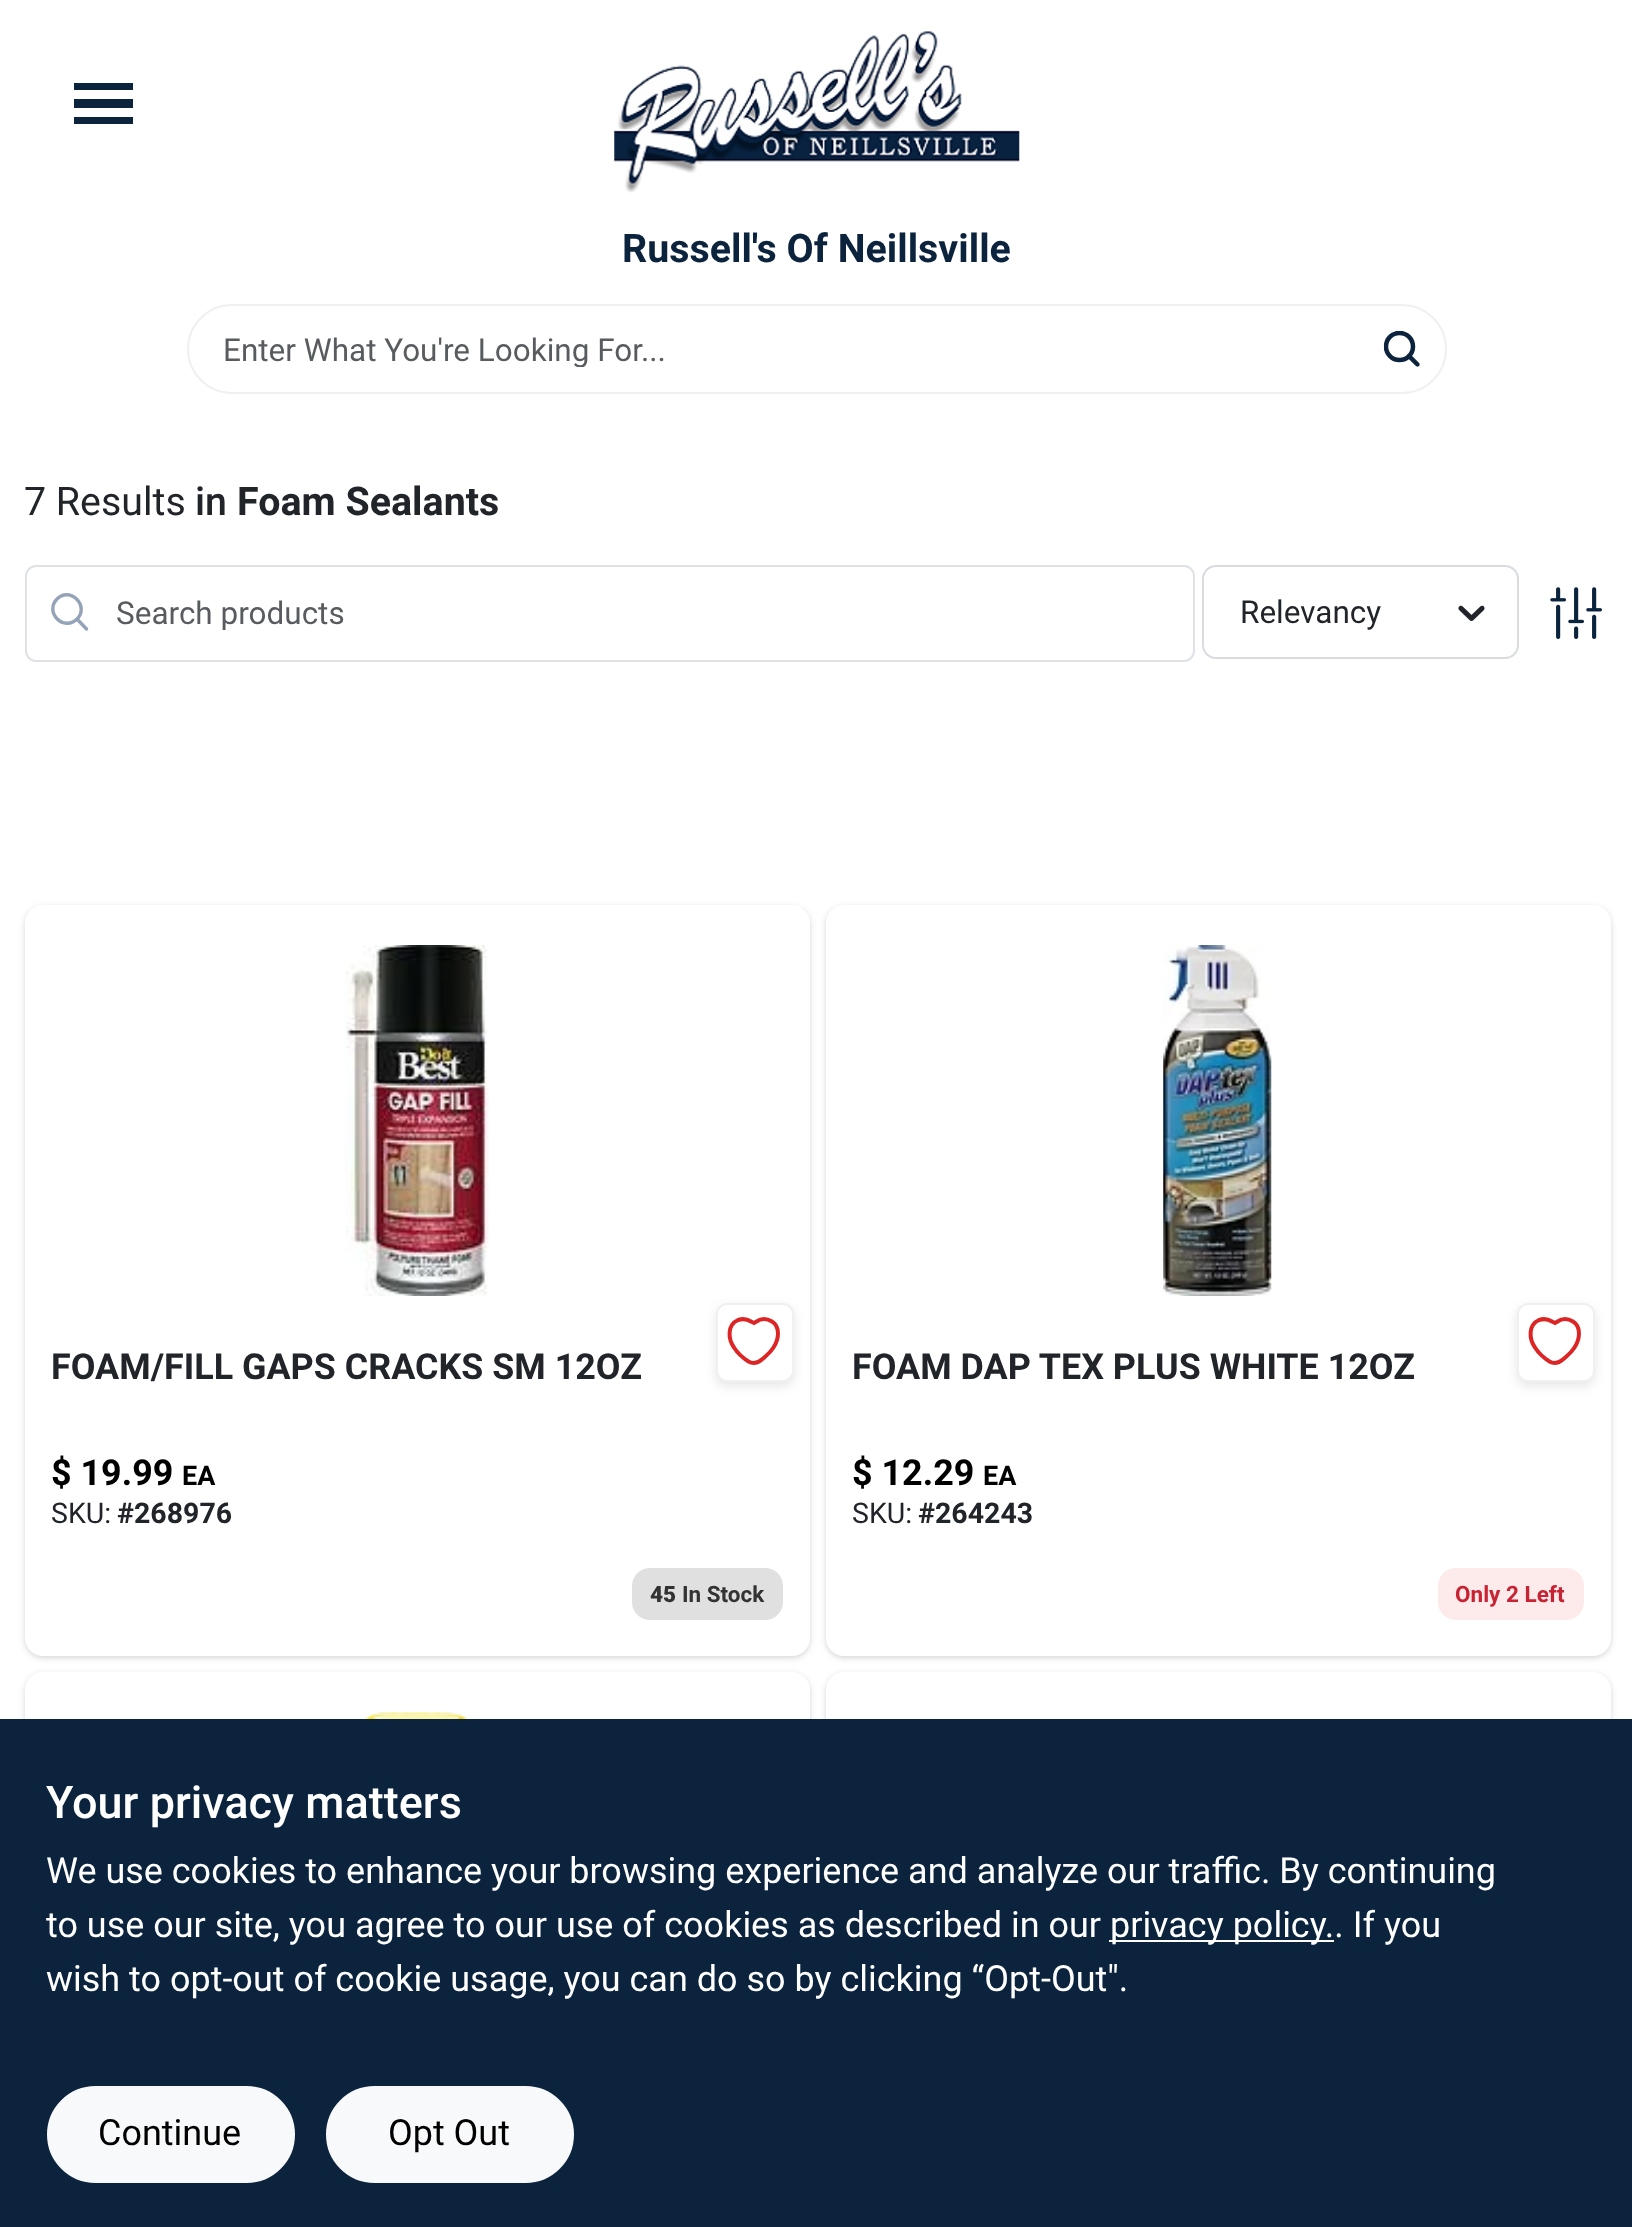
(async () => {
const canvas = document.querySelector("canvas")
canvas.width = 1632
canvas.height = 2227
const c = canvas.getContext("2d")
c.miterLimit = 4
c.fontKerning = "normal"
function T(s,x,y){c.fillText(s,x,y)}
function R(x,y,w,h){c.fillRect(x,y,w,h)}
function Q(x,y,w,h,r){c.beginPath();c.roundRect(x,y,w,h,r);c.fill()}
async function I(src,x,y,w,h){const img=new Image();img.src=src;await img.decode();c.drawImage(img,x,y,w,h)}
let path
c.fillStyle="#fff"
R(0,0,1632,2227)
c.fillStyle="#0b233d"
R(74,83,59,7)
R(74,99,59,9)
R(74,117,59,7)
await I("1.png",614,31,406,162)
c.font="bold 39.4px Roboto"
T("Russell's Of Neillsville",622,262)
c.beginPath()
c.roundRect(188,305,1258,88,44)
c.strokeStyle="#f0f0f0"
c.lineWidth=2
c.stroke()
c.save()
c.beginPath()
c.rect(223,331,1188,36)
c.clip()
c.font="31.5px Roboto"
c.fillStyle="#595c5f"
T("Enter What You're Looking For...",223,361)
c.restore()
await I("2.png",1383,330,37,37)
c.font="39.4px Roboto"
c.fillStyle="#212529"
T("7 Results",24,515)
c.font="500 39.4px Roboto"
T("in",195,515)
c.font="bold 39.4px Roboto"
T("Foam Sealants",237,515)
path = new Path2D("M86.5 629l-9.5-10m0 0c13-13-7-33-20-20c-13 13.5 7 33 20 20z")
c.strokeStyle="#94a3b8"
c.lineWidth=3.4
c.lineCap="round"
c.lineJoin="round"
c.stroke(path)
c.beginPath()
c.roundRect(26,566,1168,95,10)
c.strokeStyle="#dee2e6"
c.lineWidth=2
c.lineJoin="miter"
c.stroke()
c.save()
c.beginPath()
c.rect(117,594,1010,36)
c.clip()
c.font="31.5px Roboto"
c.fillStyle="#595c5f"
T("Search products",116,624)
c.restore()
c.beginPath()
c.roundRect(1203,566,315,92,13)
c.strokeStyle="#d8dbdf"
c.stroke()
c.font="31.5px Roboto"
T("Relevancy",1240,623)
await I("3.png",1458,605,27,16)
await I("4.png",1550,587,52,52)
c.fillStyle="#0000000f"
c.filter="blur(2px)"
c.beginPath()
c.roundRect(25,907,785,751,18)
c.fill()
c.filter="none"
c.fillStyle="#0000001a"
c.filter="blur(3.5px)"
c.beginPath()
c.roundRect(25,907,785,751,18)
c.fill()
c.filter="none"
c.fillStyle="#fff"
Q(25,905,785,751,18)
await I("5.png",345,945,144,351)
c.fillStyle="#0000001a"
c.filter="blur(5.5px)"
c.beginPath()
c.roundRect(716,1307,78,79,11)
c.fill()
c.filter="none"
c.fillStyle="#fff"
c.beginPath()
c.roundRect(717,1304,76,77,10)
c.fill()
c.strokeStyle="#f0f0f0"
c.stroke()
path = new Path2D("M772 1321.5c-5-3-11-3-15.5 0l-2.5 1.5l-3-1.5c-4-2.5-8.5-3-13-1.5c-11 5-10 19-4 27.5c3.5 5.5 9 10.5 14.5 14c5 3 10 1 14-2.5c5-4.5 7.5-6 11-11.5c5-7.5 7.5-20.5-1.5-26z")
c.strokeStyle="#dc2626"
c.lineWidth=4
c.stroke(path)
c.font="bold 35.9px Roboto"
c.fillStyle="#212529"
T("FOAM/FILL GAPS CRACKS SM 12OZ",51,1379)
c.fillStyle="#000"
T("$ 19.99",51,1485)
c.font="bold 27px Roboto"
T("EA",182,1485)
c.font="28.5px Roboto"
c.fillStyle="#212529"
T("SKU:",51,1523)
c.font="bold 28.5px Roboto"
T("#268976",117,1523)
c.fillStyle="#e0e0e0"
Q(632,1568,151,52,18)
c.font="900 22.5px Roboto"
c.fillStyle="#333"
T("45",650,1602)
c.font="bold 22.5px Roboto"
T("In Stock",682,1602)
c.fillStyle="#0000000f"
c.filter="blur(2px)"
c.beginPath()
c.roundRect(826,907,785,751,18)
c.fill()
c.filter="none"
c.fillStyle="#0000001a"
c.filter="blur(3.5px)"
c.beginPath()
c.roundRect(826,907,785,751,18)
c.fill()
c.filter="none"
c.fillStyle="#fff"
Q(826,905,785,751,18)
await I("6.png",1163,945,109,351)
c.fillStyle="#0000001a"
c.filter="blur(5.5px)"
c.beginPath()
c.roundRect(1517,1307,78,79,11)
c.fill()
c.filter="none"
c.fillStyle="#fff"
c.beginPath()
c.roundRect(1518,1304,76,77,10)
c.fill()
c.strokeStyle="#f0f0f0"
c.lineWidth=2
c.stroke()
path = new Path2D("M1573 1321.5c-5-3-11-3-15.5 0l-2.5 1.5l-3-1.5c-4-2.5-8.5-3-13-1.5c-11 5-10 19-4 27.5c3.5 5.5 9 10.5 14.5 14c5 3 10 1 14-2.5c5-4.5 7.5-6 11-11.5c5-7.5 7.5-20.5-1.5-26z")
c.strokeStyle="#dc2626"
c.lineWidth=4
c.stroke(path)
c.font="bold 35.9px Roboto"
c.fillStyle="#212529"
T("FOAM DAP TEX PLUS WHITE 12OZ",852,1379)
c.fillStyle="#000"
T("$ 12.29",852,1485)
c.font="bold 27px Roboto"
T("EA",983,1485)
c.font="28.5px Roboto"
c.fillStyle="#212529"
T("SKU:",852,1523)
c.font="bold 28.5px Roboto"
T("#264243",918,1523)
c.fillStyle="#fdeaea"
Q(1438,1568,146,52,18)
c.font="bold 22.5px Roboto"
c.fillStyle="#c82333"
T("Only 2 Left",1455,1602)
c.fillStyle="#0000000f"
c.filter="blur(2px)"
c.beginPath()
c.roundRect(25,1674,785,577,18)
c.fill()
c.filter="none"
c.fillStyle="#0000001a"
c.filter="blur(3.5px)"
c.beginPath()
c.roundRect(25,1674,785,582,18)
c.fill()
c.filter="none"
c.fillStyle="#fff"
Q(25,1672,785,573,18)
await I("7.png",358,1712,116,7)
c.fillStyle="#0000000f"
c.filter="blur(2px)"
c.beginPath()
c.roundRect(826,1674,785,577,18)
c.fill()
c.filter="none"
c.fillStyle="#0000001a"
c.filter="blur(3.5px)"
c.beginPath()
c.roundRect(826,1674,785,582,18)
c.fill()
c.filter="none"
c.fillStyle="#fff"
Q(826,1672,785,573,18)
c.fillStyle="#0b233d"
R(0,1719,1632,508)
c.font="500 45px Roboto"
c.fillStyle="#fff"
T("Your privacy matters",46,1818)
c.font="36px Roboto"
T("We use cookies to enhance your browsing experience and analyze our traffic. By continuing",46,1883)
T("to use our site, you agree to our use of cookies as described in our",46,1937)
R(1109,1940,225,2)
T("privacy policy.. If you",1110,1937)
T("wish to opt-out of cookie usage, you can do so by clicking “Opt-Out\".",46,1991)
c.fillStyle="#f8f9fa"
c.beginPath()
c.roundRect(48,2087,246,95,47.5)
c.fill()
c.strokeStyle="#f8f9fa"
c.lineWidth=2
c.stroke()
c.fillStyle="#000"
T("Continue",98,2145)
c.fillStyle="#f8f9fa"
c.beginPath()
c.roundRect(327,2087,246,95,47.5)
c.fill()
c.stroke()
c.fillStyle="#000"
T("Opt Out",388,2145)
})()
